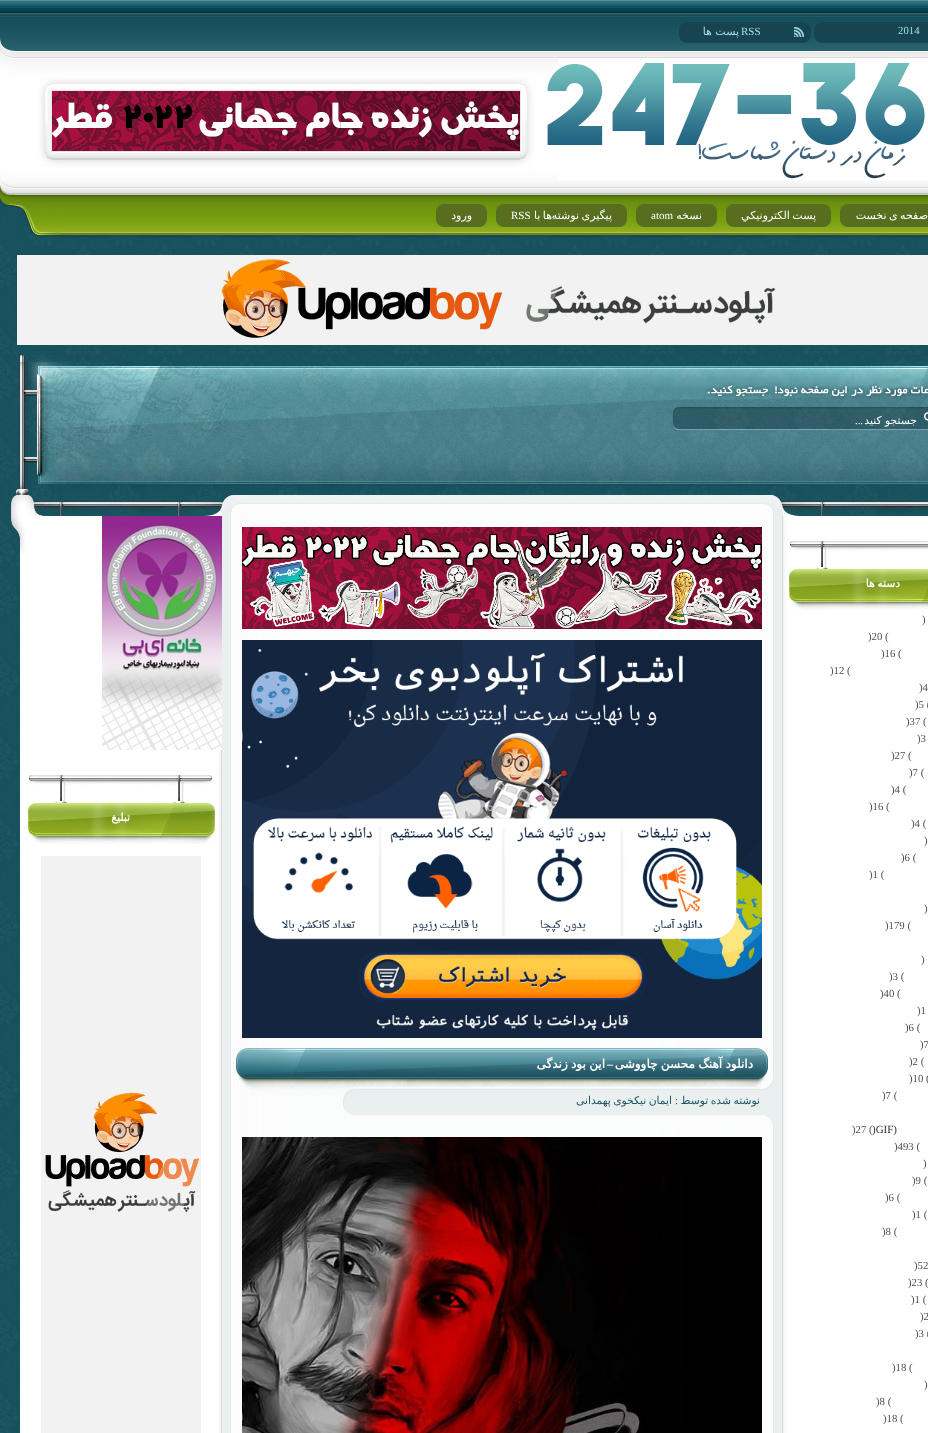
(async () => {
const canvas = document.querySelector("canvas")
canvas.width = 928
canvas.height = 1433
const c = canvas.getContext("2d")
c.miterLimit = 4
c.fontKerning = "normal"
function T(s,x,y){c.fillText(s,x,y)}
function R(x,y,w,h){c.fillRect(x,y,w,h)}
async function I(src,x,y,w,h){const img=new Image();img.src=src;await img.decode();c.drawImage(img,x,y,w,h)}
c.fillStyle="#fff"
R(0,0,928,1433)
await I("1.png",0,235,928,1198)
await I("2.png",0,0,15,59)
await I("3.png",15,0,913,59)
await I("4.png",679,22,249,21)
c.direction="rtl"
c.font="11px DejaVu Sans"
c.fillStyle="#a4ddea"
T("پست ها",739,35)
c.direction="ltr"
c.font="11px Liberation Serif"
T("RSS",741,35)
c.font="10.75px Liberation Serif"
T("2014",898,34)
await I("5.png",0,59,928,121)
await I("6.png",52,91,468,60)
await I("7.png",0,180,61,58)
await I("8.png",61,180,867,58)
await I("9.png",436,204,9,23)
await I("10.png",445,204,42,23)
c.direction="rtl"
c.font="11px DejaVu Sans"
c.fillStyle="#fff"
T("ورود",472,219)
await I("9.png",496,204,9,23)
await I("11.png",505,204,122,23)
c.direction="ltr"
c.font="11px Liberation Serif"
T("RSS",511,219)
c.wordSpacing="-1px"
c.direction="rtl"
c.font="11px DejaVu Sans"
T("ها با",552,219)
T("پیگیری نوشته",612,219)
await I("9.png",636,204,9,23)
await I("12.png",645,204,72,23)
c.wordSpacing="0px"
c.direction="ltr"
c.font="11px Liberation Serif"
T("atom",651,219)
c.direction="rtl"
c.font="11px DejaVu Sans"
T("نسخه",702,219)
await I("9.png",726,204,9,23)
await I("13.png",735,204,96,23)
c.wordSpacing="-1px"
T("پست الکترونيکي",816,219)
await I("9.png",840,204,9,23)
c.fillStyle="#576e1f"
R(849,204,79,23)
c.fillStyle="#fff"
T("صفحه ی نخست",928,219)
await I("14.png",17,255,911,90)
await I("15.png",0,355,928,161)
await I("16.png",673,407,255,23)
c.wordSpacing="0px"
c.font="10.75px Liberation Serif"
T("...",863,424)
c.font="10.75px DejaVu Sans"
T("جستجو کنید",917,424)
await I("17.png",20,516,908,917)
await I("18.png",0,516,25,51)
await I("19.png",102,516,120,234)
await I("20.png",28,775,194,69)
c.font="bold 10.75px DejaVu Sans"
T("تبلیغ",130,821)
await I("21.png",41,856,160,577)
await I("22.png",782,541,146,69)
c.wordSpacing="-1px"
T("دسته ها",900,587)
c.wordSpacing="0px"
c.direction="ltr"
c.font="10.75px Liberation Serif"
c.fillStyle="#4e4e4e"
T(")",922,623)
T(")20 (",868,640)
T(")16 (",881,657)
T(")12 (",830,674)
T(")4",919,691)
T(")5 (",915,708)
T(")37 (",906,725)
T(")3",917,742)
T(")27 (",891,759)
T(")7 (",909,776)
T(")4 (",891,793)
T(")16 (",869,810)
T(")4 (",911,827)
T(")",924,844)
T(")6 (",901,861)
T(")1 (",869,878)
T(")",924,912)
T(")179 (",885,929)
T(")",921,963)
T(")3 (",889,980)
T(")40 (",880,997)
T(")1",917,1014)
T(")6 (",905,1031)
T(")7",920,1048)
T(")2 (",909,1065)
T(")10 (",909,1082)
T(")7 (",882,1099)
T(")27 (",852,1133)
c.font="11px Liberation Serif"
c.fillStyle="#333"
T(")GIF",872,1133)
c.direction="rtl"
T("(",897,1133)
c.direction="ltr"
c.font="10.75px Liberation Serif"
c.fillStyle="#4e4e4e"
T(")493 (",894,1150)
T(")",923,1167)
T(")9 (",912,1184)
T(")6 (",885,1201)
T(")1 (",912,1218)
T(")8 (",882,1235)
T(")52",914,1269)
T(")23 (",908,1286)
T(")1 (",911,1303)
T(")2",920,1320)
T(")3 (",915,1337)
T(")18 (",892,1371)
T(")",924,1388)
T(")8 (",876,1405)
T(")18 (",883,1422)
await I("23.png",230,516,544,917)
await I("24.png",242,527,520,102)
await I("25.png",242,640,520,398)
await I("26.png",230,1048,544,41)
c.wordSpacing="-0.5px"
c.direction="rtl"
c.font="bold 12px DejaVu Sans"
c.fillStyle="#fff"
T("این بود زندگی",605,1068)
c.wordSpacing="0px"
c.font="bold 12px Liberation Serif"
T("–",613,1068)
c.wordSpacing="-0.5px"
c.font="bold 12px DejaVu Sans"
T("دانلود آهنگ محسن چاووشی",753,1068)
await I("27.png",250,1089,524,36)
c.wordSpacing="-1px"
c.font="10.75px DejaVu Sans"
c.fillStyle="#205764"
T("ایمان نیکخوی پهمدانی",672,1104)
c.wordSpacing="0px"
c.font="10.75px Liberation Serif"
T(":",678,1104)
c.wordSpacing="-1px"
c.font="10.75px DejaVu Sans"
T("نوشته شده توسط",760,1104)
await I("28.png",242,1137,520,296)
})()
